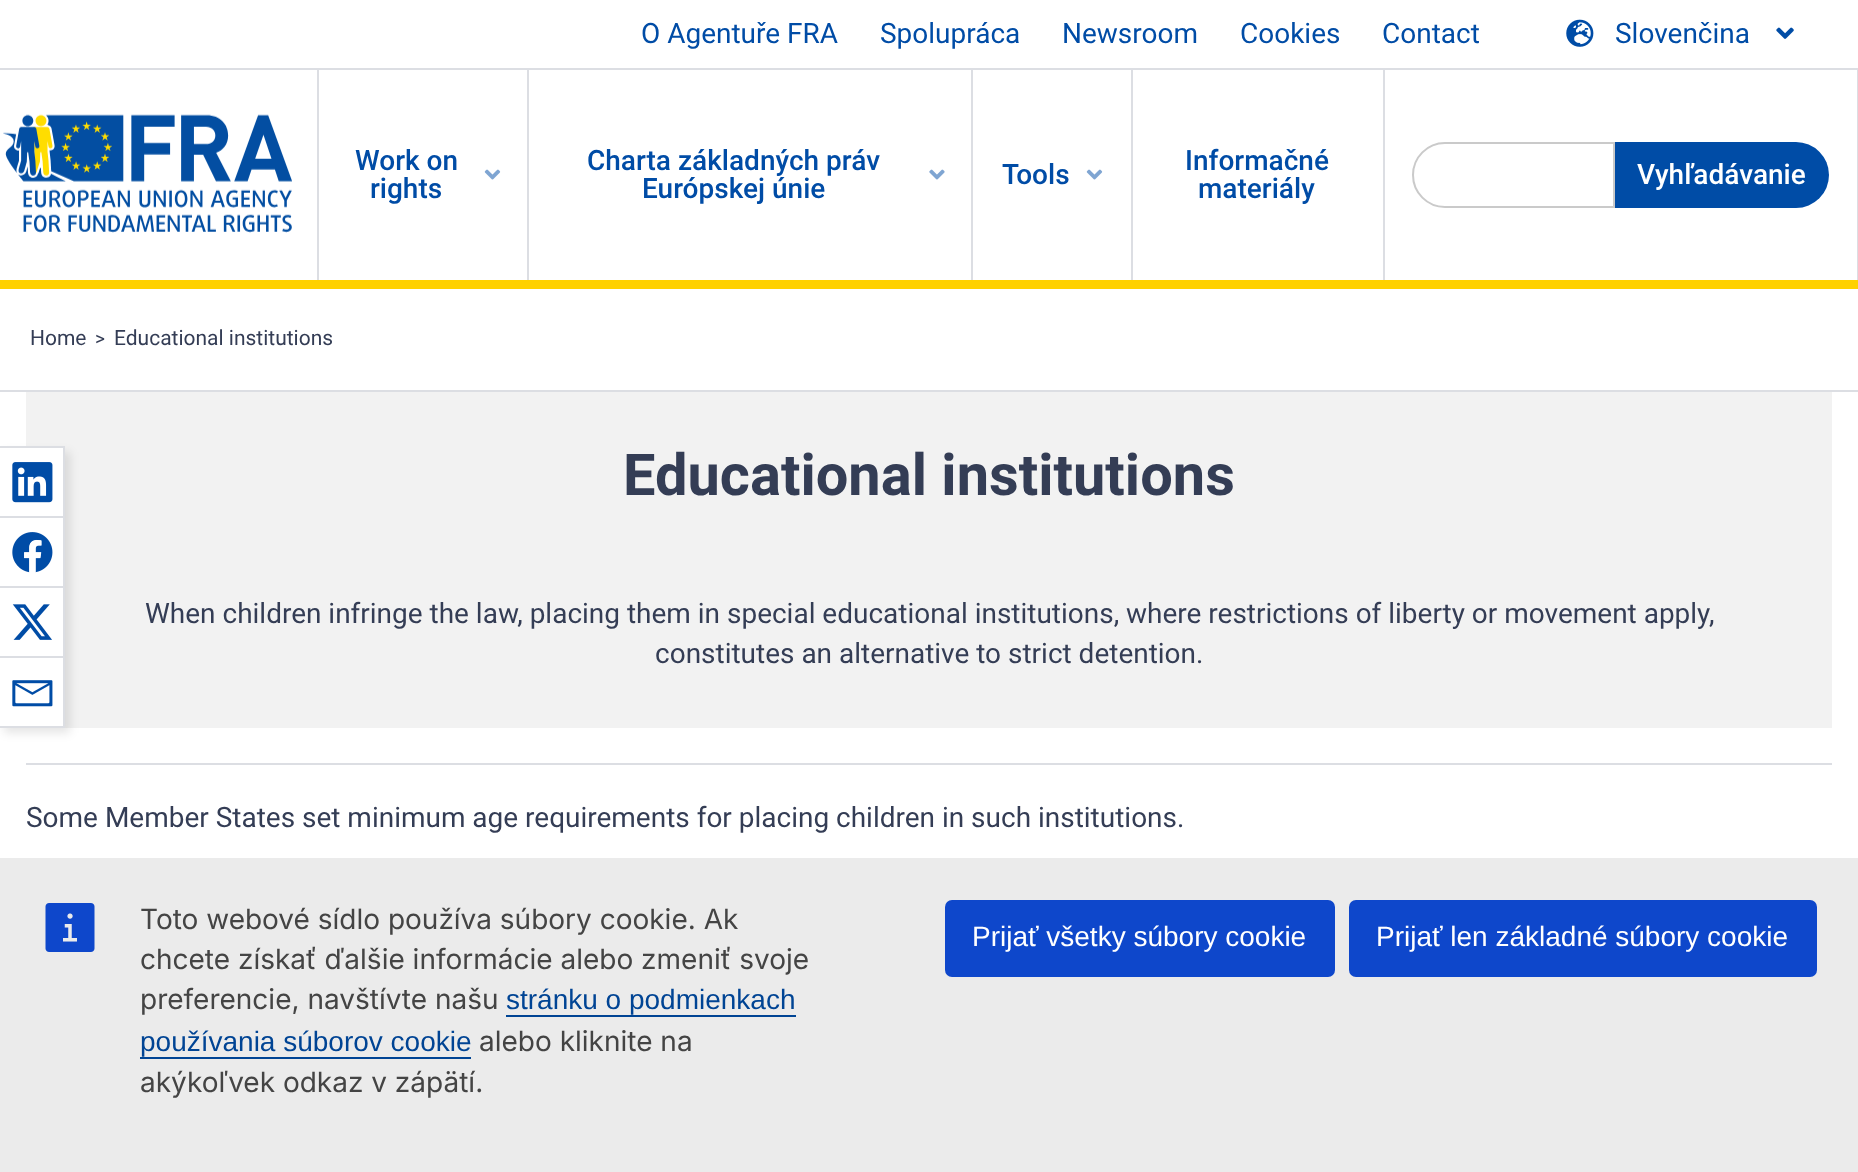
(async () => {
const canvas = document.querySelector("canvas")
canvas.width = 1858
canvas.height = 1172
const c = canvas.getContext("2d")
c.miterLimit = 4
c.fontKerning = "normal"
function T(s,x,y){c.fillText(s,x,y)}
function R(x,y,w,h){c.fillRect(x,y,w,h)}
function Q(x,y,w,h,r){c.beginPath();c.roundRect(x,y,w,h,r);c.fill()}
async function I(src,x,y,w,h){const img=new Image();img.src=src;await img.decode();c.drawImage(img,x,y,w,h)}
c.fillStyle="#fff"
R(0,0,1858,1172)
c.fillStyle="#dcdee3"
R(0,68,1858,2)
c.font="28px Roboto"
c.fillStyle="#004ca6"
T("O Agentuře FRA",641,43)
T("Spolupráca",880,43)
T("Newsroom",1062,43)
T("Cookies",1240,43)
T("Contact",1382,43)
await I("1.png",1566,19,28,28)
T("Slovenčina",1615,43)
await I("2.png",1776,27,18,12)
c.fillStyle="#ffd100"
R(0,280,1858,9)
await I("3.png",3,114,289,119)
c.fillStyle="#dcdee3"
R(317,70,2,210)
c.font="500 28px Roboto"
c.fillStyle="#004ca6"
T("Work on",355,170)
await I("4.png",484,169,17,11)
T("rights",370,198)
c.fillStyle="#dcdee3"
R(527,70,2,210)
c.fillStyle="#004ca6"
T("Charta základných práv",587,170)
await I("5.png",929,169,16,11)
T("Európskej únie",642,198)
c.fillStyle="#dcdee3"
R(971,70,2,210)
c.fillStyle="#004ca6"
T("Tools",1002,184)
await I("4.png",1086,169,17,11)
c.fillStyle="#dcdee3"
R(1131,70,2,210)
c.fillStyle="#004ca6"
T("Informačné",1185,170)
T("materiály",1198,198)
c.fillStyle="#dcdee3"
R(1857,70,1,210)
R(1383,70,2,210)
c.beginPath()
c.roundRect(1413,143,201,64,[32,0,0,32])
c.strokeStyle="#cacaca"
c.lineWidth=2
c.stroke()
c.fillStyle="#004ca6"
c.beginPath()
c.roundRect(1615,142,214,66,[0,33,33,0])
c.fill()
c.fillStyle="#fff"
T("Vyhľadávanie",1637,184)
c.fillStyle="#dcdee3"
R(0,390,1858,2)
c.font="21px Roboto"
c.fillStyle="#343d55"
T("Home",30,345)
c.font="19px Roboto"
T(">",95,345)
c.font="21px Roboto"
T("Educational institutions",114,345)
c.fillStyle="#f2f2f2"
R(26,392,1806,336)
c.fillStyle="#0000001a"
c.filter="blur(5px)"
c.beginPath()
c.rect(4,452,66,281)
c.fill()
c.filter="none"
c.fillStyle="#fff"
R(0,448,63,278)
c.fillStyle="#dcdee3"
R(63,446,2,282)
R(0,726,65,2)
R(0,446,63,2)
await I("6.png",12,462,41,41)
R(0,516,63,2)
await I("7.png",12,532,41,41)
R(0,586,63,2)
await I("8.png",12,604,40,36)
R(0,656,63,2)
await I("9.png",12,680,41,27)
c.font="bold 57.75px Roboto"
c.fillStyle="#343d55"
T("Educational institutions",623,495)
c.font="28px Roboto"
T("When children infringe the law, placing them in special educational institutions, where restrictions of liberty or movement apply,",145,623)
T("constitutes an alternative to strict detention.",655,663)
c.fillStyle="#dcdee3"
R(26,763,1806,2)
c.fillStyle="#343d55"
T("Some Member States set minimum age requirements for placing children in such institutions.",26,827)
c.fillStyle="#ebebeb"
R(0,858,1858,314)
await I("10.png",45,903,50,49)
c.font="28px Inter"
c.fillStyle="#444"
T("Toto webové sídlo používa súbory cookie. Ak",140,929)
T("chcete získať ďalšie informácie alebo zmeniť svoje",140,969)
T("preferencie, navštívte našu",140,1009)
c.font="28px Liberation Sans"
c.fillStyle="#004494"
T("stránku o podmienkach",506,1009)
R(506,1015,290,2)
T("používania súborov cookie",140,1051)
R(140,1057,331,2)
c.font="28px Inter"
c.fillStyle="#444"
T("alebo kliknite na",479,1051)
T("akýkoľvek odkaz v zápätí.",140,1092)
c.fillStyle="#0e47cb"
Q(945,900,390,77,7)
c.font="28px Liberation Sans"
c.fillStyle="#fff"
T("Prijať všetky súbory cookie",972,946)
c.fillStyle="#0e47cb"
Q(1349,900,468,77,7)
c.fillStyle="#fff"
T("Prijať len základné súbory cookie",1376,946)
})()
